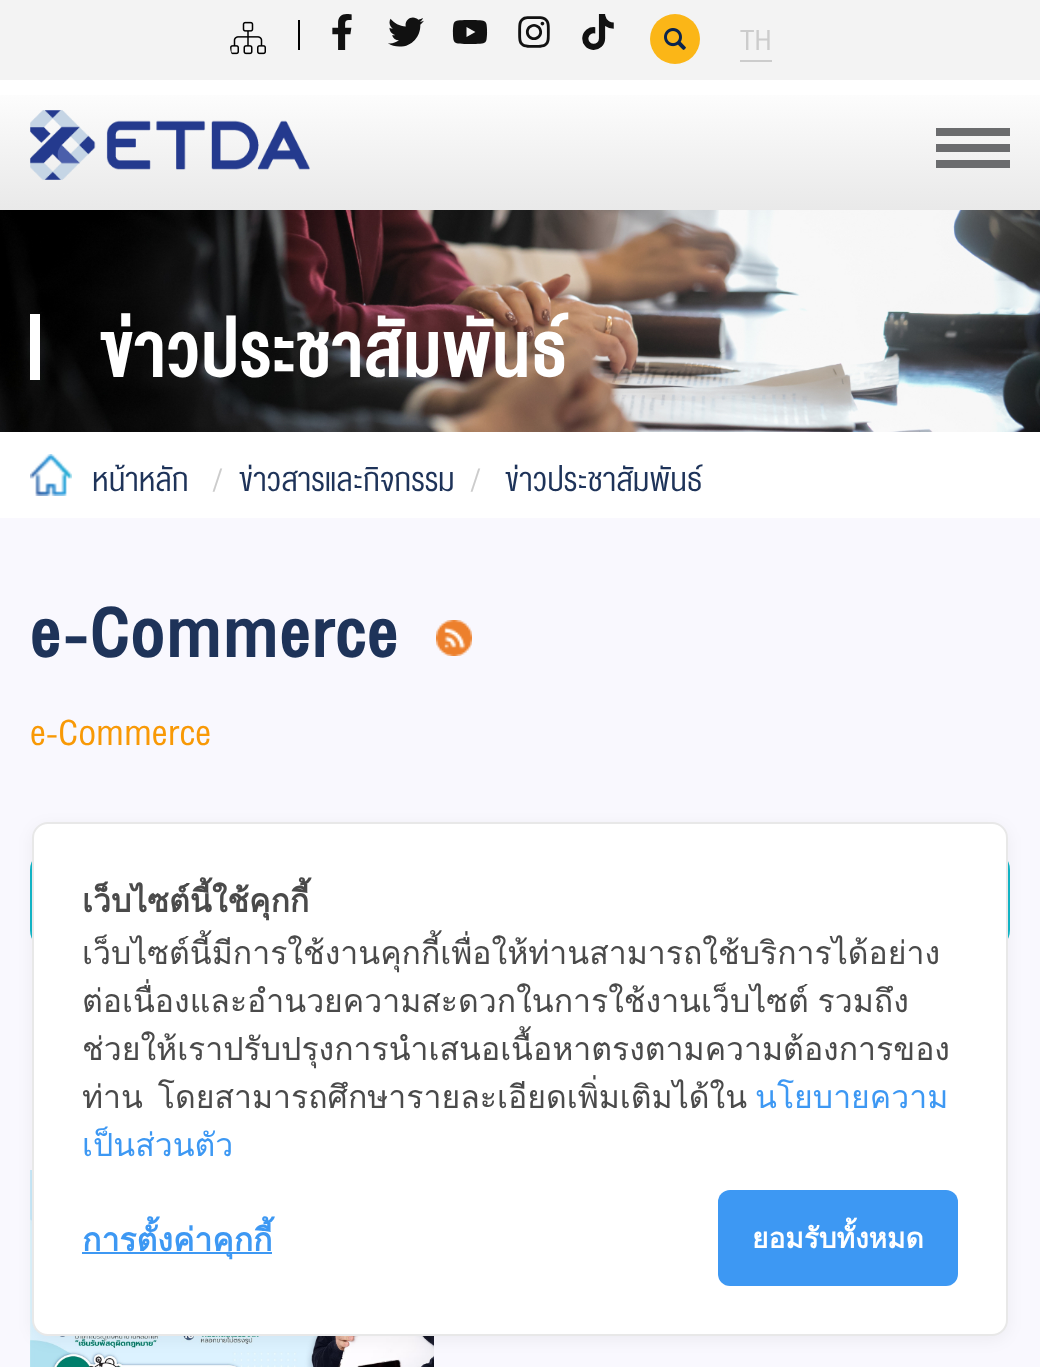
(async () => {
const canvas = document.querySelector("canvas")
canvas.width = 1040
canvas.height = 1367
const c = canvas.getContext("2d")
c.miterLimit = 4
c.fontKerning = "normal"
function T(s,x,y){c.fillText(s,x,y)}
function R(x,y,w,h){c.fillRect(x,y,w,h)}
function Q(x,y,w,h,r){c.beginPath();c.roundRect(x,y,w,h,r);c.fill()}
async function I(src,x,y,w,h){const img=new Image();img.src=src;await img.decode();c.drawImage(img,x,y,w,h)}
let gradient
c.fillStyle="#fff"
R(0,0,1040,1367)
c.fillStyle="#f3f3f3"
R(0,0,1040,80)
await I("1.png",230,21,36,34)
c.fillStyle="#000"
R(298,20,2,30)
await I("2.png",332,14,20,36)
await I("3.png",388,17,36,30)
await I("4.png",452,20,36,24)
await I("5.png",518,16,32,32)
await I("6.png",582,14,32,36)
c.fillStyle="#fbb617"
c.beginPath()
c.arc(675,39,25,0,7)
c.fill()
await I("7.png",664,28,22,22)
c.fillStyle="#ccc"
R(740,60,32,2)
c.font="40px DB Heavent"
T("TH",740,50)
gradient = c.createLinearGradient(520,210,520,80)
gradient.addColorStop(0,"#e9e9e9")
gradient.addColorStop(1,"#fff")
c.fillStyle = gradient
R(0,95,1040,115)
await I("8.png",30,110,280,70)
c.fillStyle="#6b6c6e"
R(936,128,74,8)
R(936,144,74,8)
R(936,160,74,8)
await I("9.png",0,210,1040,222)
c.fillStyle="#fff"
R(30,314,10,66)
c.font="bold 104px DB Heavent"
T("ข่าวประชาสัมพันธ์",100,377)
await I("10.png",30,454,42,42)
c.font="44px DB Heavent"
c.fillStyle="#1e3359"
T("หน้าหลัก",92,491)
c.fillStyle="#ccc"
T("/",213,491)
c.fillStyle="#1e3359"
T("ข่าวสารและกิจกรรม",239,491)
c.fillStyle="#ccc"
T("/",471,491)
c.fillStyle="#1e3359"
T("ข่าวประชาสัมพันธ์",505,491)
c.fillStyle="#f9f8fe"
R(0,518,1040,849)
c.font="bold 100px DB Heavent"
c.fillStyle="#1e3359"
T("e-Commerce",30,657)
await I("11.png",436,620,36,36)
c.font="50px DB Heavent"
c.fillStyle="#f89906"
T("e-Commerce",30,745)
c.beginPath()
c.roundRect(32,852,976,96,18)
c.strokeStyle="#12b7c8"
c.lineWidth=4
c.stroke()
await I("12.png",30,1170,404,197)
c.fillStyle="#0000000d"
c.filter="blur(8px)"
c.beginPath()
c.roundRect(32,826,976,514,16)
c.fill()
c.filter="none"
c.fillStyle="#fff"
c.beginPath()
c.roundRect(33,823,974,512,15)
c.fill()
c.strokeStyle="#e8e8e8"
c.lineWidth=2
c.stroke()
c.font="bold 32px Loma"
c.fillStyle="#4a4a4a"
T("เว็บไซต์นี้ใช้คุกกี้",82,912)
c.font="32px Loma"
T("เว็บไซต์นี้มีการใช้งานคุกกี้เพื่อให้ท่านสามารถใช้บริการได้อย่าง",82,964)
c.wordSpacing="-2px"
T("ต่อเนื่องและอำนวยความสะดวกในการใช้งานเว็บไซต์ รวมถึง",82,1012)
c.wordSpacing="0px"
T("ช่วยให้เราปรับปรุงการนำเสนอเนื้อหาตรงตามความต้องการของ",82,1060)
c.wordSpacing="4px"
T("ท่าน โดยสามารถศึกษารายละเอียดเพิ่มเติมได้ใน",82,1108)
c.wordSpacing="0px"
c.fillStyle="#3d98f3"
T("นโยบายความ",755,1108)
T("เป็นส่วนตัว",82,1156)
R(82,1252,190,2)
c.font="bold 32px Loma"
T("การตั้งค่าคุกกี้",82,1251)
Q(718,1190,240,96,12)
c.font="bold 28px Loma"
c.fillStyle="#fff"
T("ยอมรับทั้งหมด",752,1248)
})()
